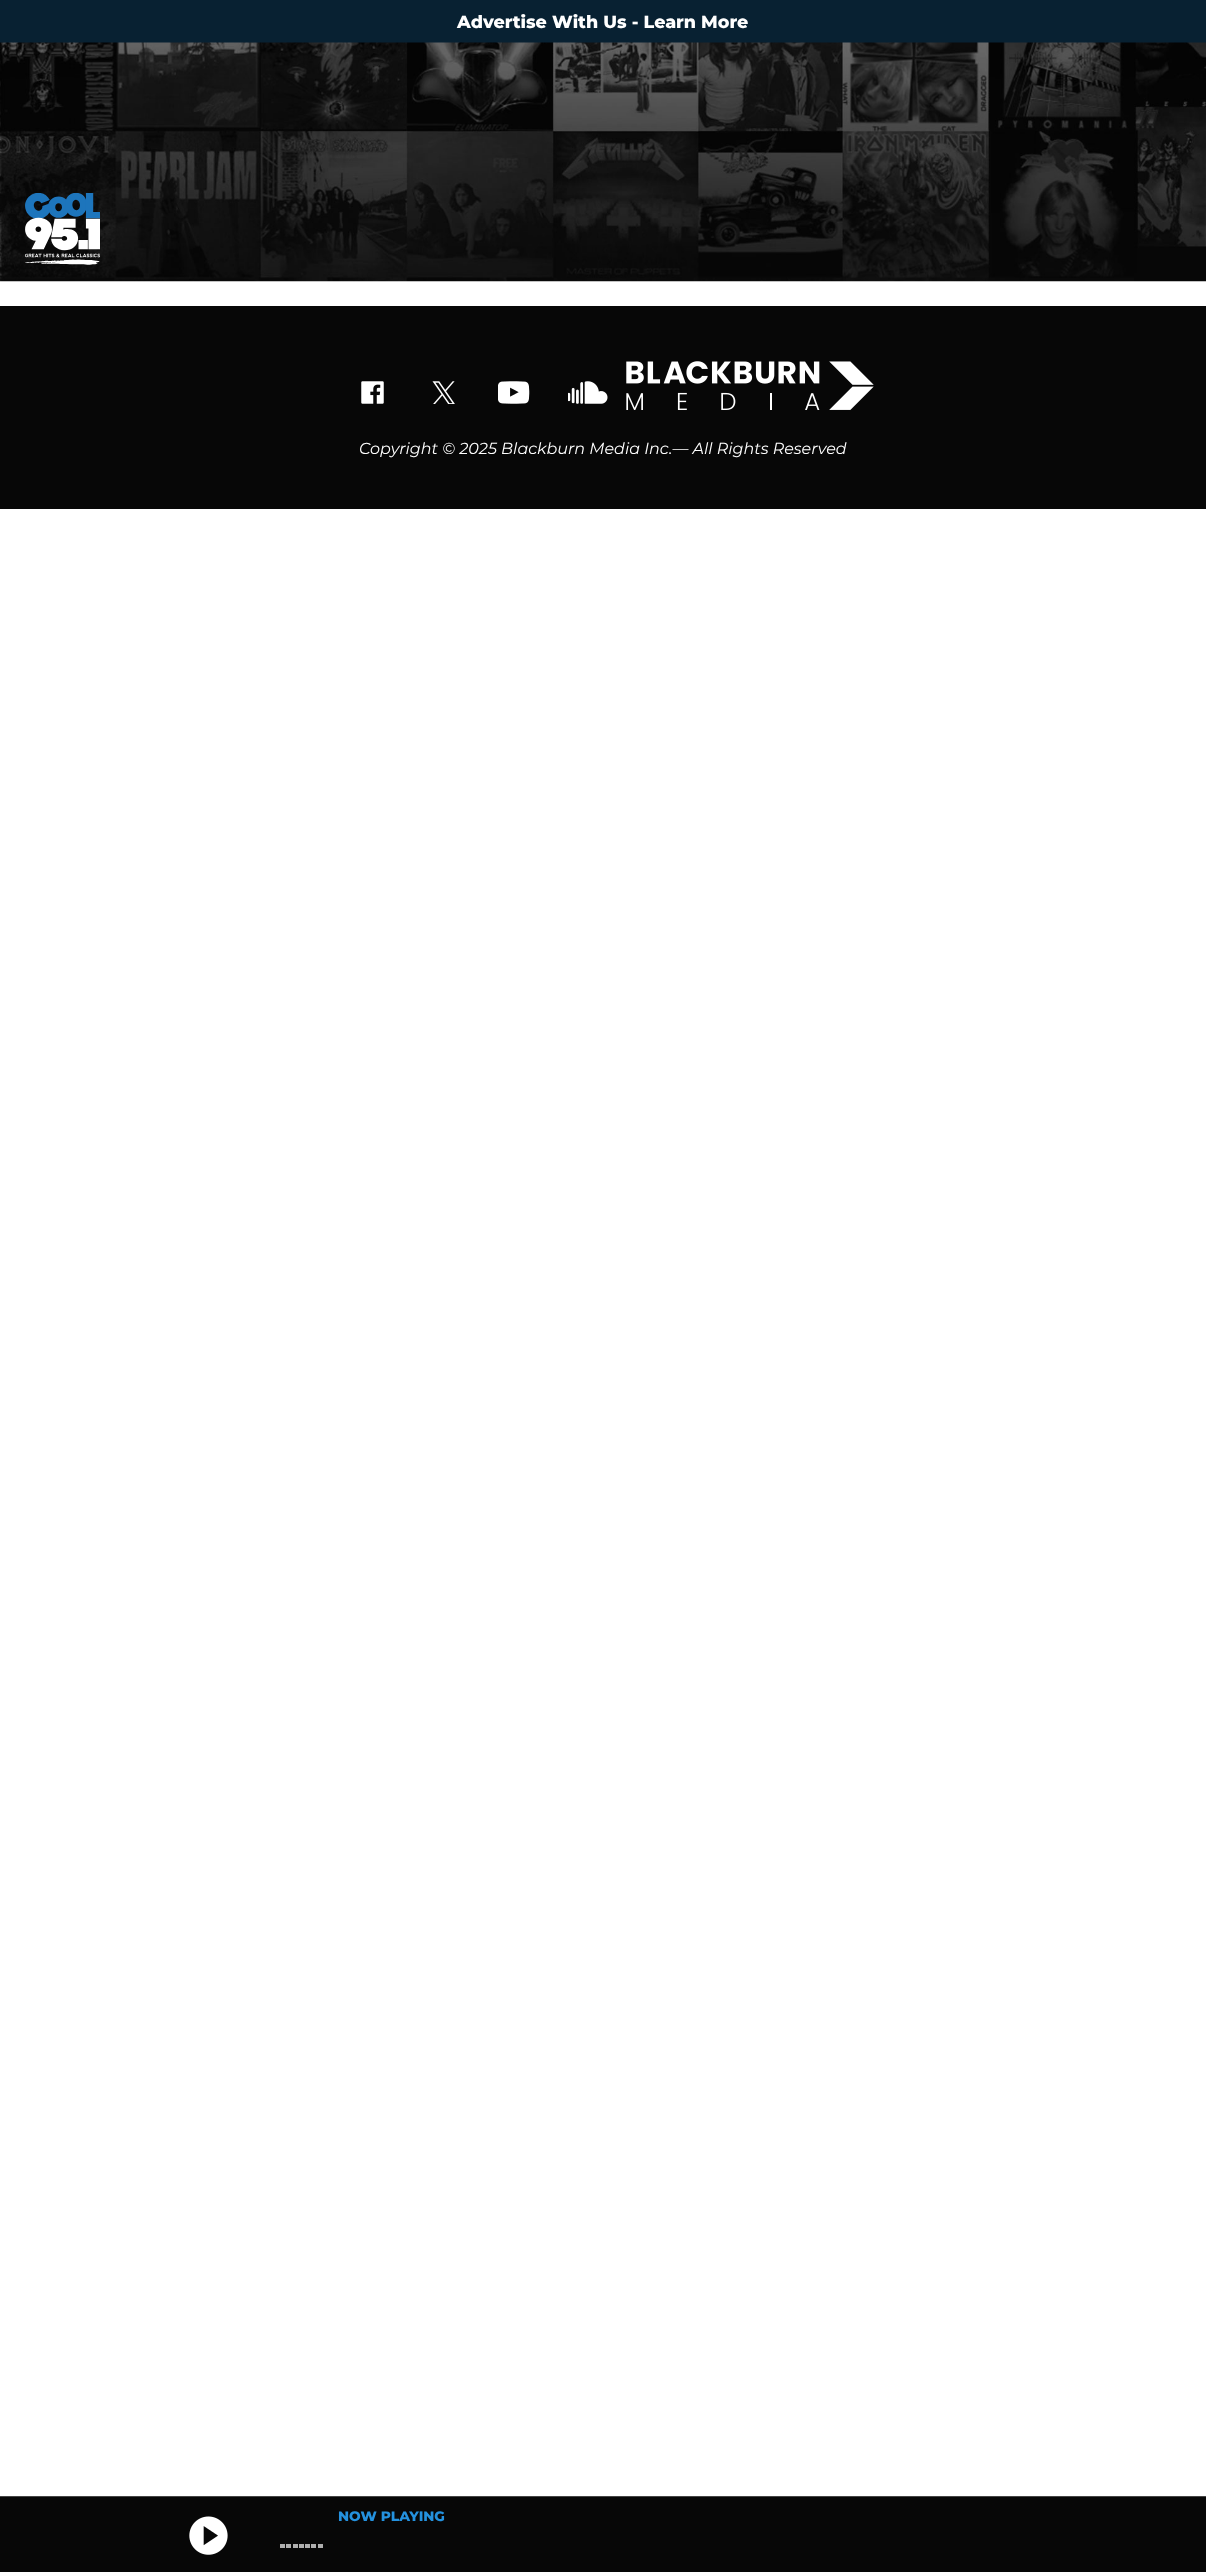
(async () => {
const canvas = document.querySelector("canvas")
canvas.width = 1206
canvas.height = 2572
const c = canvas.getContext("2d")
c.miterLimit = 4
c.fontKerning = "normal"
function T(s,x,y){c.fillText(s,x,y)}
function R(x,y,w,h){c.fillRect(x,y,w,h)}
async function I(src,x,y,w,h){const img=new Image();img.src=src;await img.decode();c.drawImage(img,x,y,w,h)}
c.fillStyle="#fff"
R(0,0,1206,2572)
c.fillStyle="#082132"
R(0,0,1206,43)
c.font="800 17.5px Montserrat"
c.fillStyle="#fff"
T("Advertise With Us - Learn More",457,28)
await I("1.png",0,42,1206,240)
await I("2.png",25,193,75,72)
c.fillStyle="#070707"
R(0,306,1206,203)
await I("3.png",361,381,23,23)
await I("4.png",432,381,23,23)
await I("5.png",498,381,32,23)
await I("6.png",568,381,40,23)
await I("7.png",626,361,248,49)
c.font="italic 15.95px Montserrat"
c.fillStyle="#fff"
T("Copyright © 2025 Blackburn Media Inc.— All Rights Reserved",359,454)
c.fillStyle="#070707"
R(0,2497,1206,75)
c.fillStyle="#454545"
R(0,2496,1206,1)
await I("8.png",189,2516,39,39)
c.fillStyle="#aeaeae"
R(280,2544,5,4)
R(286,2544,5,4)
R(293,2544,5,4)
R(299,2544,5,4)
R(305,2544,5,4)
R(311,2544,5,4)
R(318,2544,5,4)
c.font="800 13.75px Montserrat"
c.fillStyle="#2491de"
T("NOW PLAYING",338,2521)
})()
